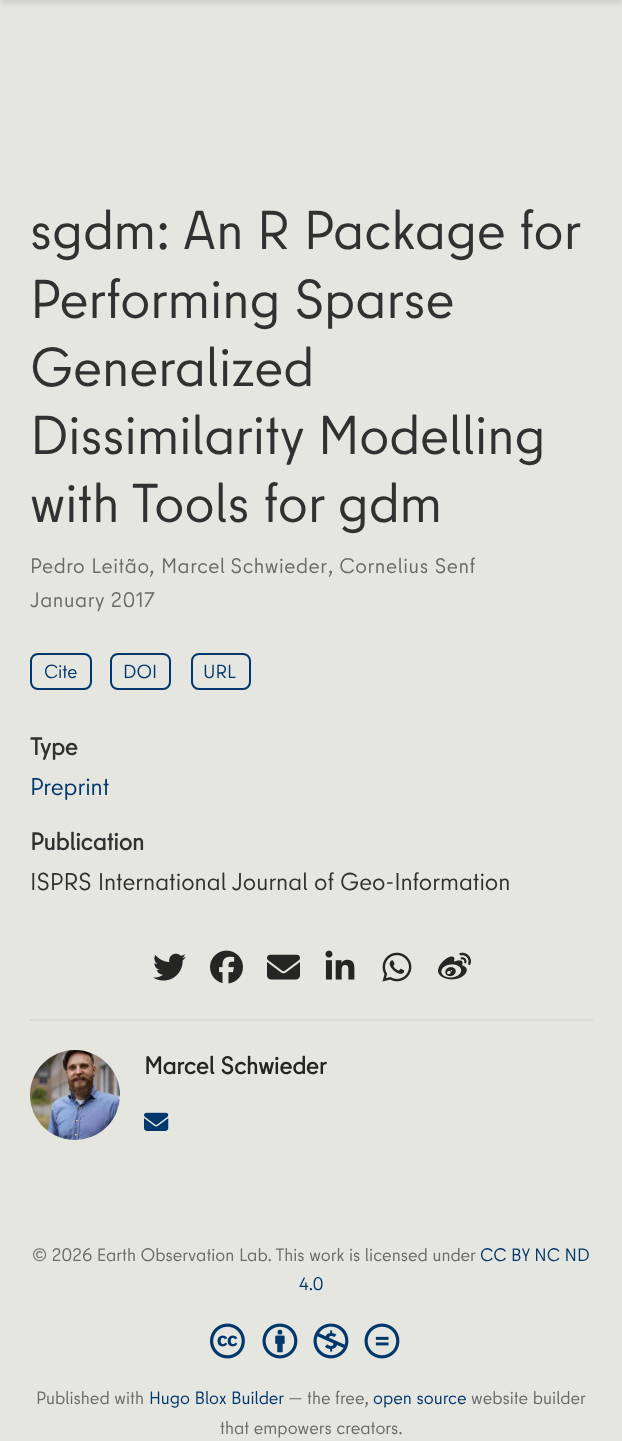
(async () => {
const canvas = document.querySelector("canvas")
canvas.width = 622
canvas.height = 1441
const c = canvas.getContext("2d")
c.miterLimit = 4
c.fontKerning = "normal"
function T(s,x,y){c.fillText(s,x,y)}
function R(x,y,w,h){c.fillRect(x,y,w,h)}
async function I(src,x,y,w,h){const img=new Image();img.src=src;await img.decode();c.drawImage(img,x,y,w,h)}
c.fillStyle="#e6e6e1"
R(0,0,622,1441)
c.fillStyle="#0000001c"
c.filter="blur(3px)"
c.beginPath()
c.rect(0,-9,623,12)
c.fill()
c.filter="none"
c.wordSpacing="-0.5px"
c.font="54.5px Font"
c.fillStyle="#313131"
T("sgdm: An R Package for",30,249)
c.wordSpacing="0px"
T("Performing Sparse",30,318)
T("Generalized",30,386)
T("Dissimilarity Modelling",30,454)
T("with Tools for gdm",30,522)
c.letterSpacing="0.6px"
c.font="21px Font"
c.fillStyle="#6a6a68"
T("Pedro Leitão,",30,573)
c.wordSpacing="-1px"
T("Marcel Schwieder",161,573)
c.wordSpacing="0px"
T(", Cornelius Senf",328,573)
T("January 2017",30,607)
c.beginPath()
c.roundRect(31,654,60,35,7)
c.strokeStyle="#00376c"
c.lineWidth=2
c.stroke()
c.letterSpacing="0px"
c.font="19px Font"
c.fillStyle="#00376c"
T("Cite",44,678)
c.beginPath()
c.roundRect(111,654,59,35,7)
c.stroke()
T("DOI",123,678)
c.beginPath()
c.roundRect(192,654,58,35,7)
c.stroke()
T("URL",203,678)
c.font="bold 24.25px Font"
c.fillStyle="#313131"
T("Type",30,755)
c.font="24.25px Font"
c.fillStyle="#00376c"
T("Preprint",30,795)
c.font="bold 24.25px Font"
c.fillStyle="#313131"
T("Publication",30,850)
c.font="24.25px Font"
T("ISPRS International Journal of Geo-Information",30,890)
await I("1.png",153,953,33,28)
await I("2.png",210,950,33,34)
await I("3.png",267,954,33,26)
await I("4.png",325,950,30,30)
await I("5.png",382,952,30,30)
await I("6.png",438,952,33,28)
c.fillStyle="#dbdbd6"
R(30,1019,563,2)
await I("7.png",30,1050,90,90)
c.font="bold 24.25px Font"
c.fillStyle="#252524"
T("Marcel Schwieder",144,1074)
await I("8.png",144,1112,25,19)
c.font="18px Font"
c.fillStyle="#6a6a68"
T("© 2026 Earth Observation Lab. This work is licensed under",32,1261)
c.fillStyle="#00376c"
T("CC BY NC ND",480,1261)
T("4.0",299,1290)
await I("9.png",210,1323,35,36)
await I("10.png",262,1323,36,36)
await I("11.png",313,1323,36,36)
await I("12.png",364,1323,36,36)
c.fillStyle="#6a6a68"
T("Published with",36,1404)
c.fillStyle="#00376c"
T("Hugo Blox Builder",149,1404)
c.fillStyle="#6a6a68"
T("— the free,",288,1404)
c.fillStyle="#00376c"
T("open source",373,1404)
c.fillStyle="#6a6a68"
T("website builder",471,1404)
T("that empowers creators.",220,1434)
})()
